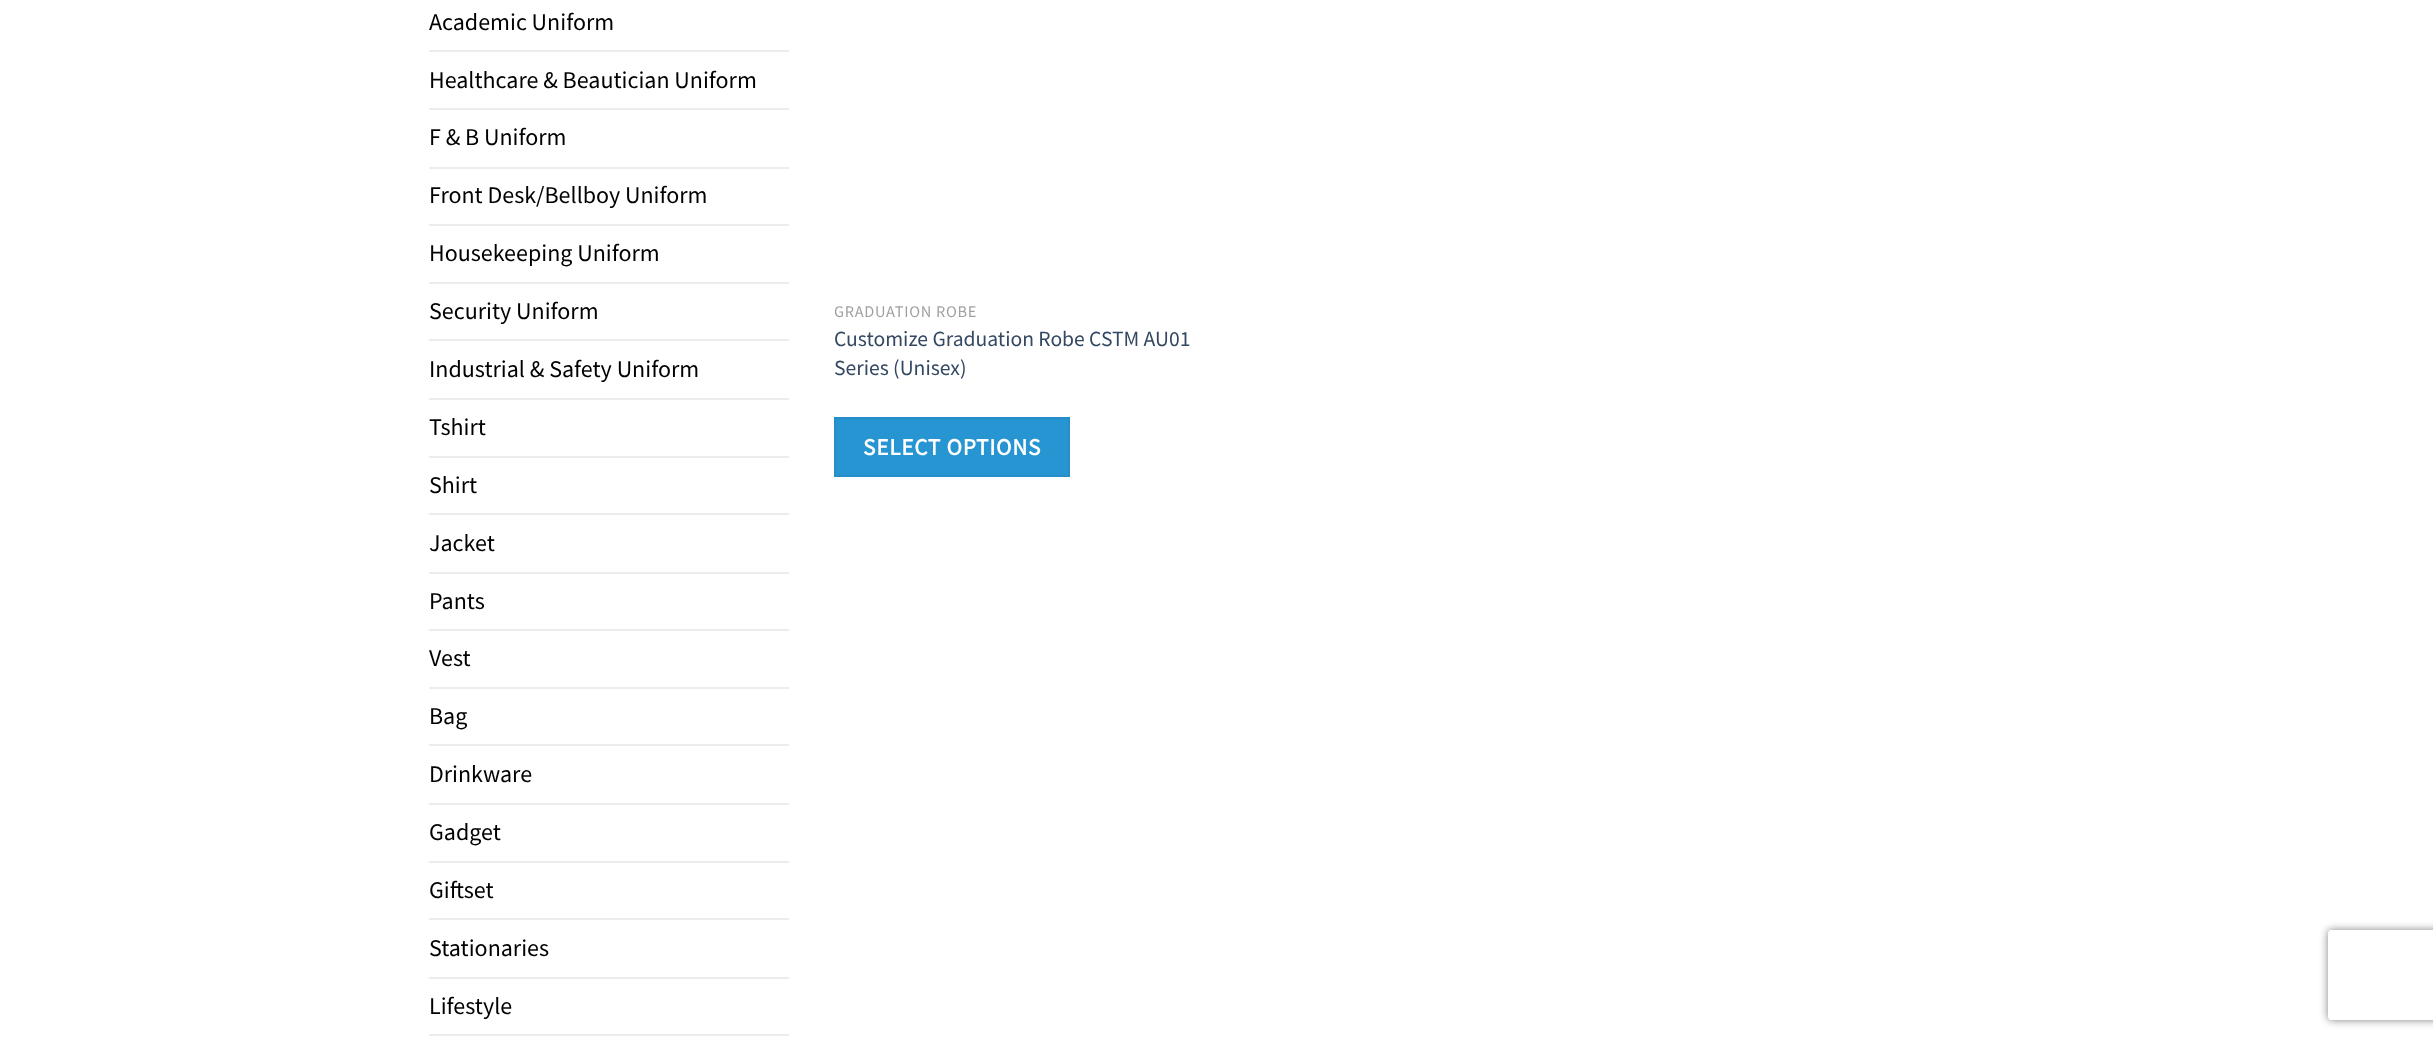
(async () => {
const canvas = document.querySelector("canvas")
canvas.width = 2433
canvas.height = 1041
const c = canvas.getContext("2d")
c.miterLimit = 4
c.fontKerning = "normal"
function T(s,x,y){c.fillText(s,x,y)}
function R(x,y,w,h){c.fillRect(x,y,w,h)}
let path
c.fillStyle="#fff"
R(0,0,2433,1041)
c.font="24px Source Sans Pro"
c.fillStyle="#000"
T("Academic Uniform",429,30)
c.fillStyle="#ececec"
R(429,50,360,2)
c.fillStyle="#000"
T("Healthcare & Beautician Uniform",429,88)
c.fillStyle="#ececec"
R(429,108,360,2)
c.fillStyle="#000"
T("F & B Uniform",429,145)
c.fillStyle="#ececec"
R(429,167,360,2)
c.fillStyle="#000"
T("Front Desk/Bellboy Uniform",429,203)
c.fillStyle="#ececec"
R(429,224,360,2)
c.fillStyle="#000"
T("Housekeeping Uniform",429,261)
c.fillStyle="#ececec"
R(429,282,360,2)
c.fillStyle="#000"
T("Security Uniform",429,319)
c.fillStyle="#ececec"
R(429,339,360,2)
c.fillStyle="#000"
T("Industrial & Safety Uniform",429,377)
c.fillStyle="#ececec"
R(429,398,360,2)
c.fillStyle="#000"
T("Tshirt",429,435)
c.fillStyle="#ececec"
R(429,456,360,2)
c.fillStyle="#000"
T("Shirt",429,493)
c.fillStyle="#ececec"
R(429,513,360,2)
c.fillStyle="#000"
T("Jacket",429,551)
c.fillStyle="#ececec"
R(429,572,360,2)
c.fillStyle="#000"
T("Pants",429,609)
c.fillStyle="#ececec"
R(429,629,360,2)
c.fillStyle="#000"
T("Vest",429,666)
c.fillStyle="#ececec"
R(429,687,360,2)
c.fillStyle="#000"
T("Bag",429,724)
c.fillStyle="#ececec"
R(429,744,360,2)
c.fillStyle="#000"
T("Drinkware",429,782)
c.fillStyle="#ececec"
R(429,803,360,2)
c.fillStyle="#000"
T("Gadget",429,840)
c.fillStyle="#ececec"
R(429,861,360,2)
c.fillStyle="#000"
T("Giftset",429,898)
c.fillStyle="#ececec"
R(429,918,360,2)
c.fillStyle="#000"
T("Stationaries",429,956)
c.fillStyle="#ececec"
R(429,977,360,2)
c.fillStyle="#000"
T("Lifestyle",429,1014)
c.fillStyle="#ececec"
R(429,1034,360,2)
c.letterSpacing="0.75px"
c.font="16.25px Source Sans Pro"
c.fillStyle="#a0a0a0"
T("GRADUATION ROBE",834,317)
c.letterSpacing="0px"
c.font="21.6px Source Sans Pro"
c.fillStyle="#334862"
T("Customize Graduation Robe CSTM AU01",834,346)
T("Series (Unisex)",834,375)
c.fillStyle="#2795d2"
c.beginPath()
c.rect(835,418,234,58)
c.fill()
c.strokeStyle="#258ec8"
c.lineWidth=2
c.stroke()
c.letterSpacing="0.75px"
c.font="bold 23.25px Source Sans Pro"
c.fillStyle="#fff"
T("SELECT OPTIONS",863,455)
c.save()
path = new Path2D("M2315 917h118v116h-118zm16 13h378c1.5 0 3 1.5 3 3v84c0 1.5-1.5 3-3 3h-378c-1.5 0-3-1.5-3-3v-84c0-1.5 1.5-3 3-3z")
c.clip(path,"evenodd")
c.fillStyle="#808080"
c.filter="blur(4px)"
c.beginPath()
c.roundRect(2328,930,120,90,3)
c.fill()
c.filter="none"
c.restore()
})()
